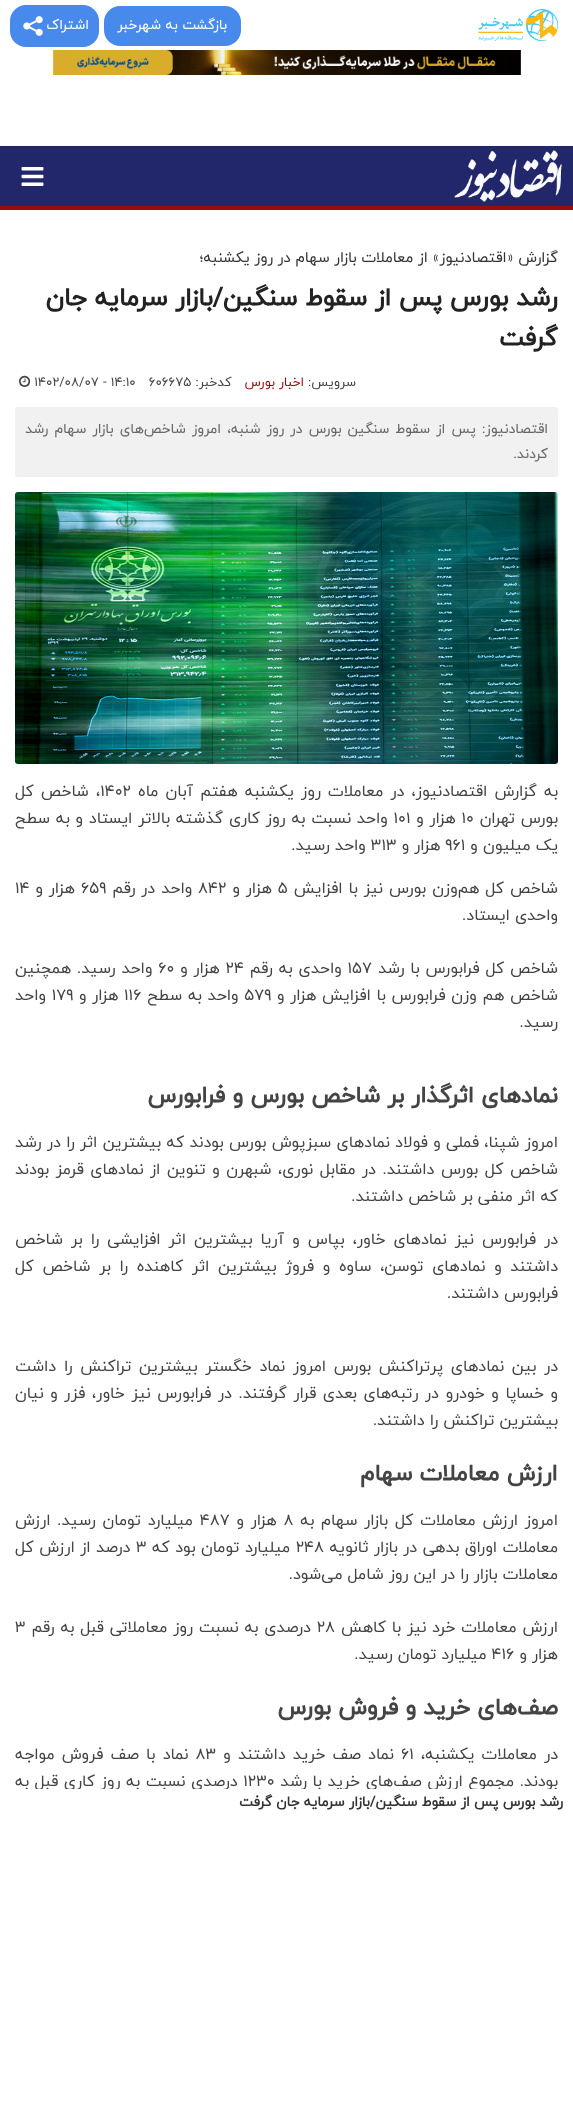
(async () => {
const canvas = document.querySelector("canvas")
canvas.width = 573
canvas.height = 2107
const c = canvas.getContext("2d")
c.miterLimit = 4
c.fontKerning = "normal"
function T(s,x,y){c.fillText(s,x,y)}
function R(x,y,w,h){c.fillRect(x,y,w,h)}
function Q(x,y,w,h,r){c.beginPath();c.roundRect(x,y,w,h,r);c.fill()}
async function I(src,x,y,w,h){const img=new Image();img.src=src;await img.decode();c.drawImage(img,x,y,w,h)}
c.fillStyle="#fff"
R(0,0,573,2107)
await I("1.png",478,9,80,32)
c.fillStyle="#488aec"
Q(104,6,137,40,16)
c.direction="rtl"
c.font="14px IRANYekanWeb"
c.fillStyle="#fff"
T("بازگشت به شهرخبر",227,29)
c.fillStyle="#488aec"
Q(10,5,89,42,16)
c.fillStyle="#fff"
T("اشتراک",89,29)
await I("2.png",23,16,20,20)
await I("3.png",52,50,469,25)
await I("4.png",0,146,573,1643)
c.font="bold 14px IRANYekanWeb"
c.fillStyle="#333"
T("رشد بورس پس از سقوط سنگین/بازار سرمایه جان گرفت",563,1806)
})()
